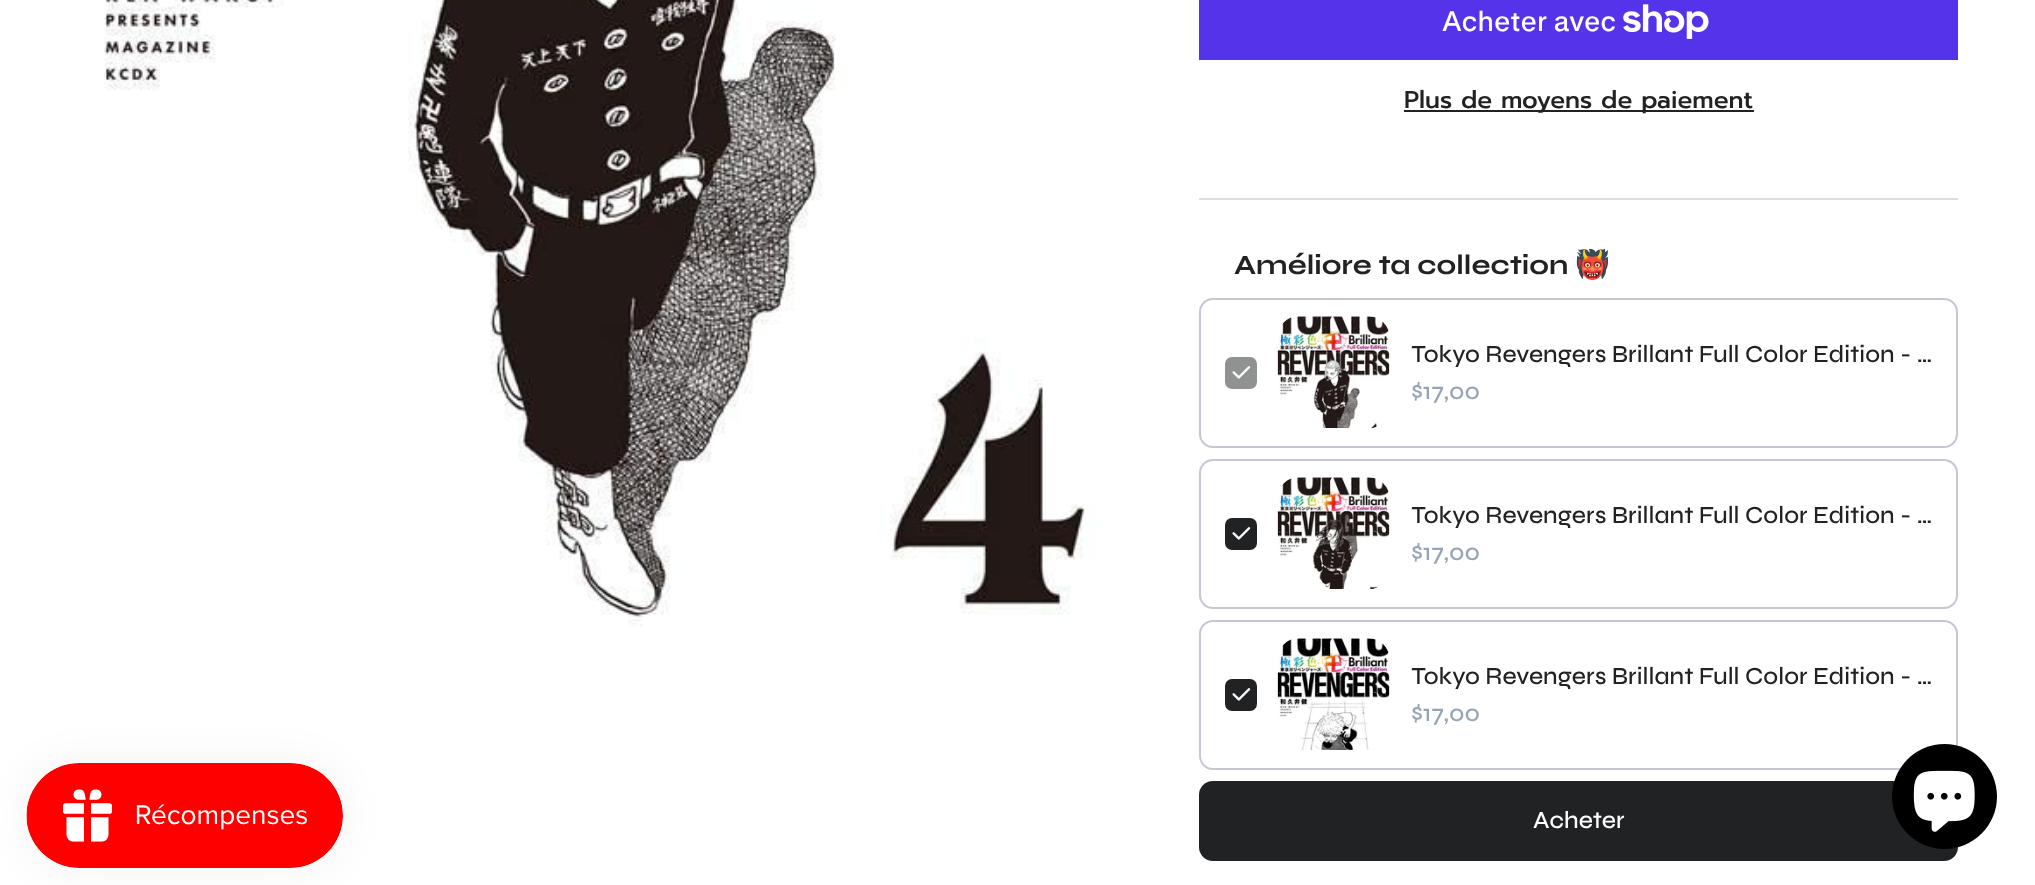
(async () => {
const canvas = document.querySelector("canvas")
canvas.width = 2035
canvas.height = 885
const c = canvas.getContext("2d")
c.miterLimit = 4
c.fontKerning = "normal"
function T(s,x,y){c.fillText(s,x,y)}
function R(x,y,w,h){c.fillRect(x,y,w,h)}
function Q(x,y,w,h,r){c.beginPath();c.roundRect(x,y,w,h,r);c.fill()}
async function I(src,x,y,w,h){const img=new Image();img.src=src;await img.decode();c.drawImage(img,x,y,w,h)}
c.fillStyle="#fff"
R(0,0,2035,885)
c.fillStyle="#0000000d"
c.filter="blur(22px)"
c.beginPath()
c.roundRect(26,763,317,105,52.5)
c.fill()
c.filter="none"
await I("1.png",26,763,317,105)
await I("2.png",104,0,993,627)
c.fillStyle="#ddd"
R(1199,198,759,2)
c.fillStyle="#5433eb"
R(1199,0,759,60)
c.font="500 28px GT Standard"
c.fillStyle="#fff"
T("Acheter avec",1442,31)
await I("3.png",1623,4,86,35)
c.fillStyle="#222"
R(1404,110,350,2)
c.font="500 24.5px Prompt"
T("Plus de moyens de paiement",1404,108)
c.font="bold 28px Syne"
T("Améliore ta collection",1234,274)
c.font="bold 28px Noto Color Emoji"
T("👹",1575,274)
c.beginPath()
c.roundRect(1200,299,757,148,13)
c.strokeStyle="#c5c8d1"
c.lineWidth=2
c.stroke()
c.fillStyle="#909191"
c.beginPath()
c.roundRect(1227,359,28,28,5)
c.fill()
c.strokeStyle="#909191"
c.lineWidth=4
c.stroke()
await I("4.png",1232,366,19,13)
await I("5.png",1277,316,113,112)
c.save()
c.beginPath()
c.roundRect(1411,338,521,35,14)
c.clip()
c.font="500 24.5px Syne"
c.fillStyle="#222"
T("Tokyo Revengers Brillant Full Color Edition - …",1411,362)
c.restore()
c.font="500 24.5px Syne"
c.fillStyle="#96a4b6"
T("$17,00",1411,399)
c.beginPath()
c.roundRect(1200,460,757,148,13)
c.strokeStyle="#c5c8d1"
c.lineWidth=2
c.stroke()
c.fillStyle="#202223"
c.beginPath()
c.roundRect(1227,520,28,28,5)
c.fill()
c.strokeStyle="#202223"
c.lineWidth=4
c.stroke()
await I("6.png",1232,527,19,13)
await I("7.png",1277,477,113,112)
c.save()
c.beginPath()
c.roundRect(1411,499,521,35,14)
c.clip()
c.fillStyle="#222"
T("Tokyo Revengers Brillant Full Color Edition - …",1411,523)
c.restore()
c.fillStyle="#96a4b6"
T("$17,00",1411,560)
c.beginPath()
c.roundRect(1200,621,757,148,13)
c.strokeStyle="#c5c8d1"
c.lineWidth=2
c.stroke()
c.fillStyle="#202223"
c.beginPath()
c.roundRect(1227,681,28,28,5)
c.fill()
c.strokeStyle="#202223"
c.lineWidth=4
c.stroke()
await I("6.png",1232,688,19,13)
await I("8.png",1277,638,113,112)
c.save()
c.beginPath()
c.roundRect(1411,660,521,35,14)
c.clip()
c.fillStyle="#222"
T("Tokyo Revengers Brillant Full Color Edition - …",1411,684)
c.restore()
c.fillStyle="#96a4b6"
T("$17,00",1411,721)
c.fillStyle="#202223"
Q(1199,781,759,80,14)
c.fillStyle="#fff"
T("Acheter",1533,828)
c.fillStyle="#000"
c.beginPath()
c.arc(1944.5,796.5,52.5,0,7)
c.fill()
await I("9.png",1913,770,62,62)
})()
